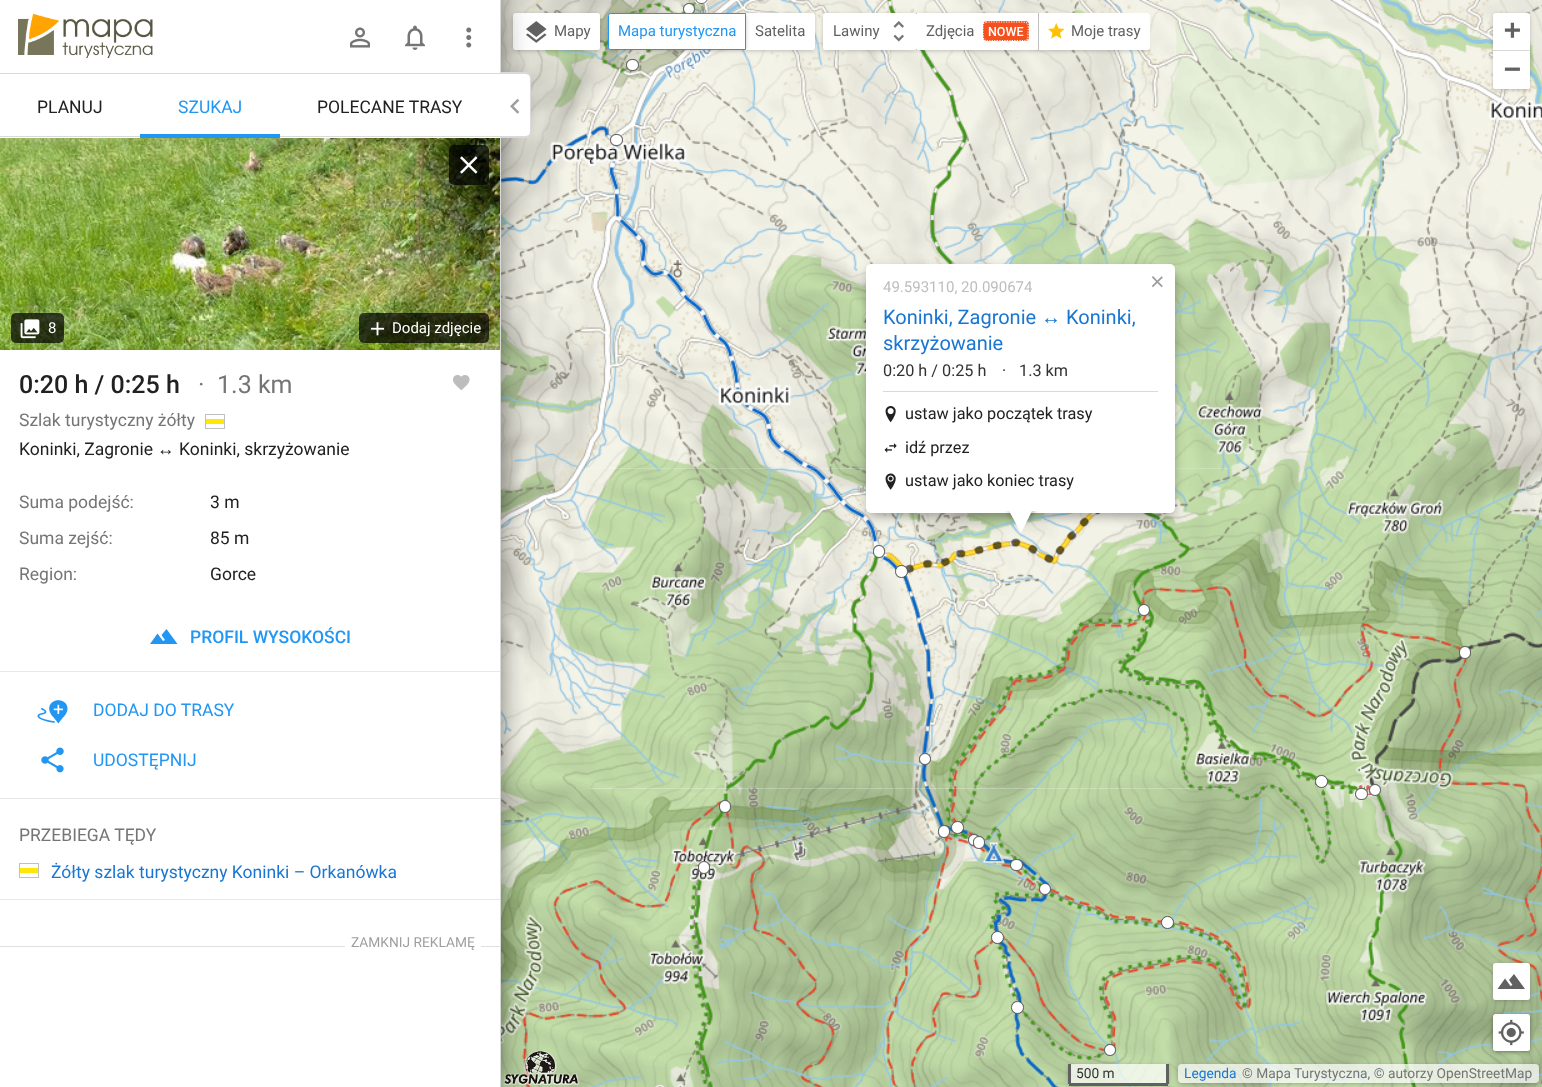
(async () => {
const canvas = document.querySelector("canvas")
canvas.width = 1542
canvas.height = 1087
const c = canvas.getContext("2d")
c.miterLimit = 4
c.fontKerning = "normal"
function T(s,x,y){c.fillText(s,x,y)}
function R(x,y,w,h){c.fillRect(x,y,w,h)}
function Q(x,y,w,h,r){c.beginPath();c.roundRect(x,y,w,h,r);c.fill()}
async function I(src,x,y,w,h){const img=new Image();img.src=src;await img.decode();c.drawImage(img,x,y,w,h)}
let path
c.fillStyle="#fff"
R(0,0,1542,1087)
await I("18.png",501,0,89,149)
await I("19.png",590,0,320,149)
c.fillStyle="#0000004d"
c.filter="blur(2.5px)"
c.beginPath()
c.roundRect(514,15,85,35,1)
c.fill()
c.filter="none"
c.fillStyle="#fff"
Q(513,13,87,37,2.5)
await I("13.png",526,21,21,22)
await I("30.png",501,789,89,298)
await I("16.png",503,1050,77,35)
await I("22.png",501,149,89,320)
await I("26.png",501,469,89,320)
c.fillStyle="#000"
c.filter="blur(19px)"
c.beginPath()
c.rect(-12,0,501,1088)
c.fill()
c.filter="none"
c.fillStyle="#fff"
R(0,0,500,1087)
c.fillStyle="#d9d9d9"
R(500,0,1,1087)
R(0,73,500,1)
await I("1.png",18,13,135,45)
await I("2.png",350,27,20,21)
await I("3.png",405,25,20,25)
await I("4.png",466,27,6,21)
R(0,136,500,1)
c.font="17.5px Roboto"
c.fillStyle="#212121"
T("PLANUJ",37,113)
c.fillStyle="#2196f3"
R(140,134,140,4)
T("SZUKAJ",178,113)
c.fillStyle="#212121"
T("POLECANE TRASY",317,113)
await I("6.png",0,138,500,212)
c.fillStyle="#000000b3"
Q(449,145,40,40,5)
await I("5.png",460,156,18,18)
Q(11,313,53,30,5)
await I("7.png",20,319,20,20)
c.font="15px Roboto"
c.fillStyle="#fff"
T("8",48,333)
c.fillStyle="#000000b3"
Q(359,313,130,30,5)
await I("8.png",370,322,15,14)
c.fillStyle="#fff"
T("Dodaj zdjęcie",392,333)
c.font="500 25px Roboto"
c.fillStyle="#212121"
T("0:20 h / 0:25 h",19,393)
c.font="25px Roboto"
c.fillStyle="#757575"
T("·",198,393)
T("1.3 km",217,393)
await I("9.png",453,375,17,16)
c.font="17.5px Roboto"
T("Szlak turystyczny żółty",19,426)
c.strokeStyle="#c0c0c0"
c.strokeRect(205.5,414.5,19,14)
c.fillStyle="#ffe709"
R(206,419,18,5)
c.fillStyle="#212121"
T("Koninki, Zagronie",19,455)
c.font="17.5px Liberation Sans"
T("↔",157,455)
c.font="17.5px Roboto"
T("Koninki, skrzyżowanie",179,455)
c.fillStyle="#e8e8e8"
R(0,671,500,1)
c.fillStyle="#757575"
T("Suma podejść:",19,508)
c.fillStyle="#212121"
T("3 m",210,508)
c.fillStyle="#757575"
T("Suma zejść:",19,544)
c.fillStyle="#212121"
T("85 m",210,544)
c.fillStyle="#757575"
T("Region:",19,580)
c.fillStyle="#212121"
T("Gorce",210,580)
c.fillStyle="#2196f3"
path = new Path2D("M166.5 629l11 15h-27.5l7.5-10.5l5.5 7.5l2-1l-3.5-5z")
c.fill(path)
c.font="500 17.5px Roboto"
T("PROFIL WYSOKOŚCI",190,643)
c.fillStyle="#e8e8e8"
R(0,798,500,1)
await I("10.png",37,700,31,24)
c.font="17.5px Roboto"
c.fillStyle="#2196f3"
T("DODAJ DO TRASY",93,716)
await I("11.png",41,747,23,26)
T("UDOSTĘPNIJ",93,766)
c.fillStyle="#e8e8e8"
R(0,899,500,1)
c.fillStyle="#757575"
T("PRZEBIEGA TĘDY",19,841)
c.strokeRect(19.5,863.5,19,14)
c.fillStyle="#ffe709"
R(20,868,18,5)
c.fillStyle="#1976d2"
T("Żółty szlak turystyczny Koninki – Orkanówka",51,878)
c.fillStyle="#fff"
c.beginPath()
c.roundRect(500,74,30,62,[0,4,4,0])
c.fill()
c.fillStyle="#d9d9d9"
path = new Path2D("M500 72h26c3 0 5 3 5 6v54c0 3-2 6-5 6h-26zm0 2h26c2 0 4 1 4 4v54c0 3-2 4-4 4h-26z")
c.fill(path,"evenodd")
await I("12.png",510,98,10,16)
c.fillStyle="#e0e0e0"
R(0,946,500,1)
c.fillStyle="#fff"
R(345,946,136,1)
c.font="13.75px Roboto"
c.fillStyle="#9e9e9e"
T("ZAMKNIJ REKLAMĘ",351,947)
c.font="15px Roboto"
c.fillStyle="#616161"
T("Mapy",554,36)
c.fillStyle="#0000004d"
c.filter="blur(2.5px)"
c.beginPath()
c.roundRect(746,15,68,35,1)
c.fill()
c.filter="none"
c.fillStyle="#fff"
c.beginPath()
c.roundRect(745,13,70,37,[0,2.5,2.5,0])
c.fill()
c.fillStyle="#00000080"
c.filter="blur(0.5px)"
c.beginPath()
c.roundRect(695,-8,13,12,6.5)
c.fill()
c.filter="none"
c.fillStyle="#fff"
c.beginPath()
c.roundRect(695,0,13,4,[0,0,6.5,6.5])
c.fill()
c.beginPath()
c.roundRect(695.5,-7.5,12,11,6)
c.strokeStyle="#666"
c.stroke()
c.fillStyle="#00000080"
c.filter="blur(0.5px)"
c.beginPath()
c.roundRect(683,3,12,12,6)
c.fill()
c.filter="none"
c.fillStyle="#fff"
c.beginPath()
c.arc(689,9,5.5,0,7)
c.fill()
c.stroke()
c.fillStyle="#0000004d"
c.filter="blur(2.5px)"
c.beginPath()
c.roundRect(609,15,136,35,1)
c.fill()
c.filter="none"
c.fillStyle="#fff"
c.beginPath()
c.roundRect(608.5,13.5,137,36,[2,0,0,2])
c.fill()
c.strokeStyle="#2196f3"
c.stroke()
c.fillStyle="#2196f3"
T("Mapa turystyczna",618,36)
c.fillStyle="#616161"
T("Satelita",755,36)
await I("20.png",910,0,320,149)
c.fillStyle="#0000004d"
c.filter="blur(2.5px)"
c.beginPath()
c.roundRect(824,15,92,35,1)
c.fill()
c.filter="none"
c.fillStyle="#fff"
c.beginPath()
c.roundRect(823,13,95,37,[2.5,0,0,2.5])
c.fill()
c.fillStyle="#0000004d"
c.filter="blur(2.5px)"
c.beginPath()
c.rect(918,15,120,35)
c.fill()
c.filter="none"
c.fillStyle="#c0c0c0"
R(916,13,1,37)
c.fillStyle="#616161"
T("Lawiny",833,36)
await I("14.png",893,21,11,21)
c.fillStyle="#fff"
R(913,14,4,35)
R(917,13,121,37)
c.fillStyle="#616161"
T("Zdjęcia",926,36)
c.fillStyle="#f4511e"
Q(983,21,46,20,4)
path = new Path2D("M986 22h32.5c12.5 0 9.5 1 9.5 13.5c0 6.5-3 5-9.5 5h-19.5c-14.5 0-16 3.5-16-9.5c0-2.5-1-9 3-9z")
c.strokeStyle="#fff"
c.lineWidth=1.2
c.setLineDash([1.25,1.25])
c.stroke(path)
c.font="500 12.5px Roboto"
c.fillStyle="#fff"
T("NOWE",988,36)
c.save()
c.beginPath()
c.rect(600,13,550,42)
c.clip()
c.fillStyle="#0000004d"
c.filter="blur(2.5px)"
c.beginPath()
c.roundRect(1039,15,110,35,1)
c.fill()
c.filter="none"
c.restore()
R(1034,14,4,35)
c.beginPath()
c.roundRect(1038,13,112,37,[0,2.5,2.5,0])
c.fill()
c.fillStyle="#c0c0c0"
R(1038,13,1,37)
await I("15.png",1048,23,17,16)
c.font="15px Roboto"
c.fillStyle="#616161"
T("Moje trasy",1071,36)
await I("21.png",1230,0,312,149)
c.fillStyle="#0000004d"
c.filter="blur(2.5px)"
c.beginPath()
c.roundRect(1494,15,35,74,1)
c.fill()
c.filter="none"
c.fillStyle="#fff"
c.beginPath()
c.roundRect(1493,13,37,38,[2.5,2.5,0,0])
c.fill()
c.fillStyle="#d9d9d9"
R(1493,50,37,1)
c.font="bold 28px DejaVu Sans Mono"
c.fillStyle="#616161"
T("+",1504,39)
c.fillStyle="#fff"
c.beginPath()
c.roundRect(1493,51,37,38,[0,0,2.5,2.5])
c.fill()
c.fillStyle="#616161"
T("−",1504,78)
await I("33.png",1230,789,312,298)
c.fillStyle="#0000004d"
c.filter="blur(2.5px)"
c.beginPath()
c.roundRect(1494,1016,35,35,1)
c.fill()
c.filter="none"
c.filter="blur(2.5px)"
c.beginPath()
c.roundRect(1494,1016,35,35,1)
c.fill()
c.filter="none"
c.fillStyle="#fff"
Q(1493,1014,37,37,2.5)
await I("17.png",1498,1019,26,27)
await I("32.png",910,789,320,298)
c.save()
path = new Path2D("M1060 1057h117v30h-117zm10.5 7h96c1.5 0 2.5 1 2.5 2.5v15c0 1.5-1 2.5-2.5 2.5h-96c-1.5 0-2.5-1-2.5-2.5v-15c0-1.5 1-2.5 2.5-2.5z")
c.clip(path,"evenodd")
c.fillStyle="#0000004d"
c.filter="blur(2.5px)"
c.beginPath()
c.roundRect(1069,1066,99,18,1)
c.fill()
c.filter="none"
c.restore()
c.fillStyle="#ffffffb3"
c.beginPath()
c.roundRect(1068,1064,101,21,[0,0,2.5,2.5])
c.fill()
c.fillStyle="#616161"
R(1166,1064,3,20)
R(1069,1083,99,3)
R(1068,1064,3,20)
c.font="13.75px Roboto"
c.fillStyle="#333"
T("500 m",1076,1078)
c.save()
path = new Path2D("M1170 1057h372v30h-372zm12 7h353c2 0 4 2 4 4v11c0 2-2 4-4 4h-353c-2 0-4-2-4-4v-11c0-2 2-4 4-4z")
c.clip(path,"evenodd")
c.fillStyle="#0000004d"
c.filter="blur(2.5px)"
c.beginPath()
c.roundRect(1179,1066,359,17,2.5)
c.fill()
c.filter="none"
c.restore()
c.fillStyle="#ffffffb3"
Q(1178,1064,361,19,4)
c.fillStyle="#1976d2"
T("Legenda",1184,1078)
c.fillStyle="#757575"
T("© Mapa Turystyczna, © autorzy OpenStreetMap",1242,1078)
c.fillStyle="#00000080"
c.filter="blur(0.5px)"
c.beginPath()
c.roundRect(626,59,13,12,6)
c.fill()
c.filter="none"
c.fillStyle="#fff"
c.beginPath()
c.roundRect(626.5,59.5,12,11,5.5)
c.fill()
c.strokeStyle="#666"
c.lineWidth=1
c.setLineDash([])
c.stroke()
c.fillStyle="#00000080"
c.filter="blur(0.5px)"
c.beginPath()
c.roundRect(610,134,13,12,6)
c.fill()
c.filter="none"
c.fillStyle="#fff"
c.beginPath()
c.roundRect(610.5,134.5,12,11,5.5)
c.fill()
c.stroke()
await I("23.png",590,149,320,320)
await I("27.png",590,468,320,321)
c.fillStyle="#00000080"
c.filter="blur(0.5px)"
c.beginPath()
c.roundRect(873,545,12,13,6)
c.fill()
c.filter="none"
c.fillStyle="#fff"
c.beginPath()
c.roundRect(873.5,545.5,11,12,5.5)
c.fill()
c.stroke()
await I("24.png",910,149,320,320)
await I("28.png",910,468,320,321)
await I("37.png",905,513,196,61)
c.fillStyle="#00000080"
c.filter="blur(0.5px)"
c.beginPath()
c.roundRect(895,565,13,13,6.5)
c.fill()
c.filter="none"
c.fillStyle="#fff"
c.beginPath()
c.arc(901.5,571.5,6,0,7)
c.fill()
c.stroke()
c.fillStyle="#00000080"
c.filter="blur(0.5px)"
c.beginPath()
c.roundRect(1138,604,12,12,6)
c.fill()
c.filter="none"
c.fillStyle="#fff"
c.beginPath()
c.arc(1144,610,5.5,0,7)
c.fill()
c.stroke()
await I("29.png",1230,469,312,320)
c.fillStyle="#00000080"
c.filter="blur(0.5px)"
c.beginPath()
c.roundRect(1459,646,12,13,6)
c.fill()
c.filter="none"
c.fillStyle="#fff"
c.beginPath()
c.roundRect(1459.5,646.5,11,12,5.5)
c.fill()
c.stroke()
c.fillStyle="#00000080"
c.filter="blur(0.5px)"
c.beginPath()
c.roundRect(919,753,12,12,6)
c.fill()
c.filter="none"
c.fillStyle="#fff"
c.beginPath()
c.arc(925,759,5.5,0,7)
c.fill()
c.stroke()
c.fillStyle="#00000080"
c.filter="blur(0.5px)"
c.beginPath()
c.roundRect(1315,775,13,13,6.5)
c.fill()
c.filter="none"
c.fillStyle="#fff"
c.beginPath()
c.arc(1321.5,781.5,6,0,7)
c.fill()
c.stroke()
c.fillStyle="#00000080"
c.filter="blur(0.5px)"
c.beginPath()
c.roundRect(1369,784,12,12,6)
c.fill()
c.filter="none"
c.fillStyle="#fff"
c.beginPath()
c.arc(1375,790,5.5,0,7)
c.fill()
c.stroke()
c.fillStyle="#00000080"
c.filter="blur(0.5px)"
c.beginPath()
c.roundRect(1355,788,13,12,6)
c.fill()
c.filter="none"
c.fillStyle="#fff"
c.beginPath()
c.roundRect(1355.5,788.5,12,11,5.5)
c.fill()
c.stroke()
await I("31.png",590,789,320,298)
c.fillStyle="#00000080"
c.filter="blur(0.5px)"
c.beginPath()
c.roundRect(719,800,12,13,6)
c.fill()
c.filter="none"
c.fillStyle="#fff"
c.beginPath()
c.roundRect(719.5,800.5,11,12,5.5)
c.fill()
c.stroke()
c.fillStyle="#00000080"
c.filter="blur(0.5px)"
c.beginPath()
c.roundRect(951,821,13,13,6.5)
c.fill()
c.filter="none"
c.fillStyle="#fff"
c.beginPath()
c.arc(957.5,827.5,6,0,7)
c.fill()
c.stroke()
c.fillStyle="#00000080"
c.filter="blur(0.5px)"
c.beginPath()
c.roundRect(938,825,12,13,6)
c.fill()
c.filter="none"
c.fillStyle="#fff"
c.beginPath()
c.roundRect(938.5,825.5,11,12,5.5)
c.fill()
c.stroke()
c.fillStyle="#00000080"
c.filter="blur(0.5px)"
c.beginPath()
c.roundRect(968,834,12,12,6)
c.fill()
c.filter="none"
c.fillStyle="#fff"
c.beginPath()
c.arc(974,840,5.5,0,7)
c.fill()
c.stroke()
c.fillStyle="#00000080"
c.filter="blur(0.5px)"
c.beginPath()
c.roundRect(973,836,12,13,6)
c.fill()
c.filter="none"
c.fillStyle="#fff"
c.beginPath()
c.roundRect(973.5,836.5,11,12,5.5)
c.fill()
c.stroke()
c.fillStyle="#00000080"
c.filter="blur(0.5px)"
c.beginPath()
c.roundRect(698,861,12,13,6)
c.fill()
c.filter="none"
c.fillStyle="#fff"
c.beginPath()
c.roundRect(698.5,861.5,11,12,5.5)
c.fill()
c.stroke()
c.fillStyle="#00000080"
c.filter="blur(0.5px)"
c.beginPath()
c.roundRect(1010,859,13,12,6)
c.fill()
c.filter="none"
c.fillStyle="#fff"
c.beginPath()
c.roundRect(1010.5,859.5,12,11,5.5)
c.fill()
c.stroke()
c.fillStyle="#00000080"
c.filter="blur(0.5px)"
c.beginPath()
c.roundRect(1039,883,12,12,6)
c.fill()
c.filter="none"
c.fillStyle="#fff"
c.beginPath()
c.arc(1045,889,5.5,0,7)
c.fill()
c.stroke()
c.fillStyle="#00000080"
c.filter="blur(0.5px)"
c.beginPath()
c.roundRect(1161,916,13,13,6.5)
c.fill()
c.filter="none"
c.fillStyle="#fff"
c.beginPath()
c.arc(1167.5,922.5,6,0,7)
c.fill()
c.stroke()
c.fillStyle="#00000080"
c.filter="blur(0.5px)"
c.beginPath()
c.roundRect(991,931,13,13,6.5)
c.fill()
c.filter="none"
c.fillStyle="#fff"
c.beginPath()
c.arc(997.5,937.5,6,0,7)
c.fill()
c.stroke()
c.fillStyle="#00000080"
c.filter="blur(0.5px)"
c.beginPath()
c.roundRect(1011,1001,13,13,6.5)
c.fill()
c.filter="none"
c.fillStyle="#fff"
c.beginPath()
c.arc(1017.5,1007.5,6,0,7)
c.fill()
c.stroke()
c.fillStyle="#00000080"
c.filter="blur(0.5px)"
c.beginPath()
c.roundRect(1104,1044,12,12,6)
c.fill()
c.filter="none"
c.fillStyle="#fff"
c.beginPath()
c.arc(1110,1050,5.5,0,7)
c.fill()
c.stroke()
await I("25.png",1230,149,312,320)
c.fillStyle="#00000066"
c.filter="blur(6px)"
c.beginPath()
c.roundRect(869,271,304,244,2.5)
c.fill()
c.filter="none"
c.fillStyle="#fff"
Q(866,264,309,249,5)
c.font="15px Roboto"
c.fillStyle="#bdbdbd"
T("49.593110, 20.090674",883,292)
c.font="20px Roboto"
c.fillStyle="#1976d2"
T("Koninki, Zagronie",883,324)
c.font="20px Liberation Sans"
T("↔",1041,324)
c.font="20px Roboto"
T("Koninki,",1066,324)
T("skrzyżowanie",883,350)
c.font="16.25px Roboto"
c.fillStyle="#333"
T("0:20 h / 0:25 h",883,376)
T("·",1002,376)
T("1.3 km",1019,376)
c.fillStyle="#d9d9d9"
R(883,391,275,1)
await I("34.png",885,406,11,17)
c.fillStyle="#212121"
T("ustaw jako początek trasy",905,419)
await I("35.png",884,443,13,10)
T("idź przez",905,453)
await I("36.png",885,473,11,17)
T("ustaw jako koniec trasy",905,486)
c.font="25px Liberation Sans"
c.fillStyle="#9e9e9e"
T("×",1150,290)
c.save()
c.beginPath()
c.rect(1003,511,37,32)
c.clip()
c.fillStyle="#000000b3"
c.filter="blur(4.5px)"
c.beginPath()
c.rect(1013,500,17,18)
c.fill()
c.filter="none"
c.restore()
c.save()
c.beginPath()
c.rect(1003,511,37,32)
c.clip()
c.fillStyle="#fff"
path = new Path2D("M1021 484l12 25l-12 24l-13-24z")
c.fill(path)
c.restore()
c.fillStyle="#0000004d"
c.filter="blur(2.5px)"
c.beginPath()
c.roundRect(1494,965,35,35,1)
c.fill()
c.filter="none"
c.fillStyle="#fff"
Q(1493,963,37,37,2.5)
c.fillStyle="#616161"
path = new Path2D("M1514 974l11 15h-27.5l7.5-10.5l5.5 7.5l2-1l-3.5-5z")
c.fill(path)
})()
